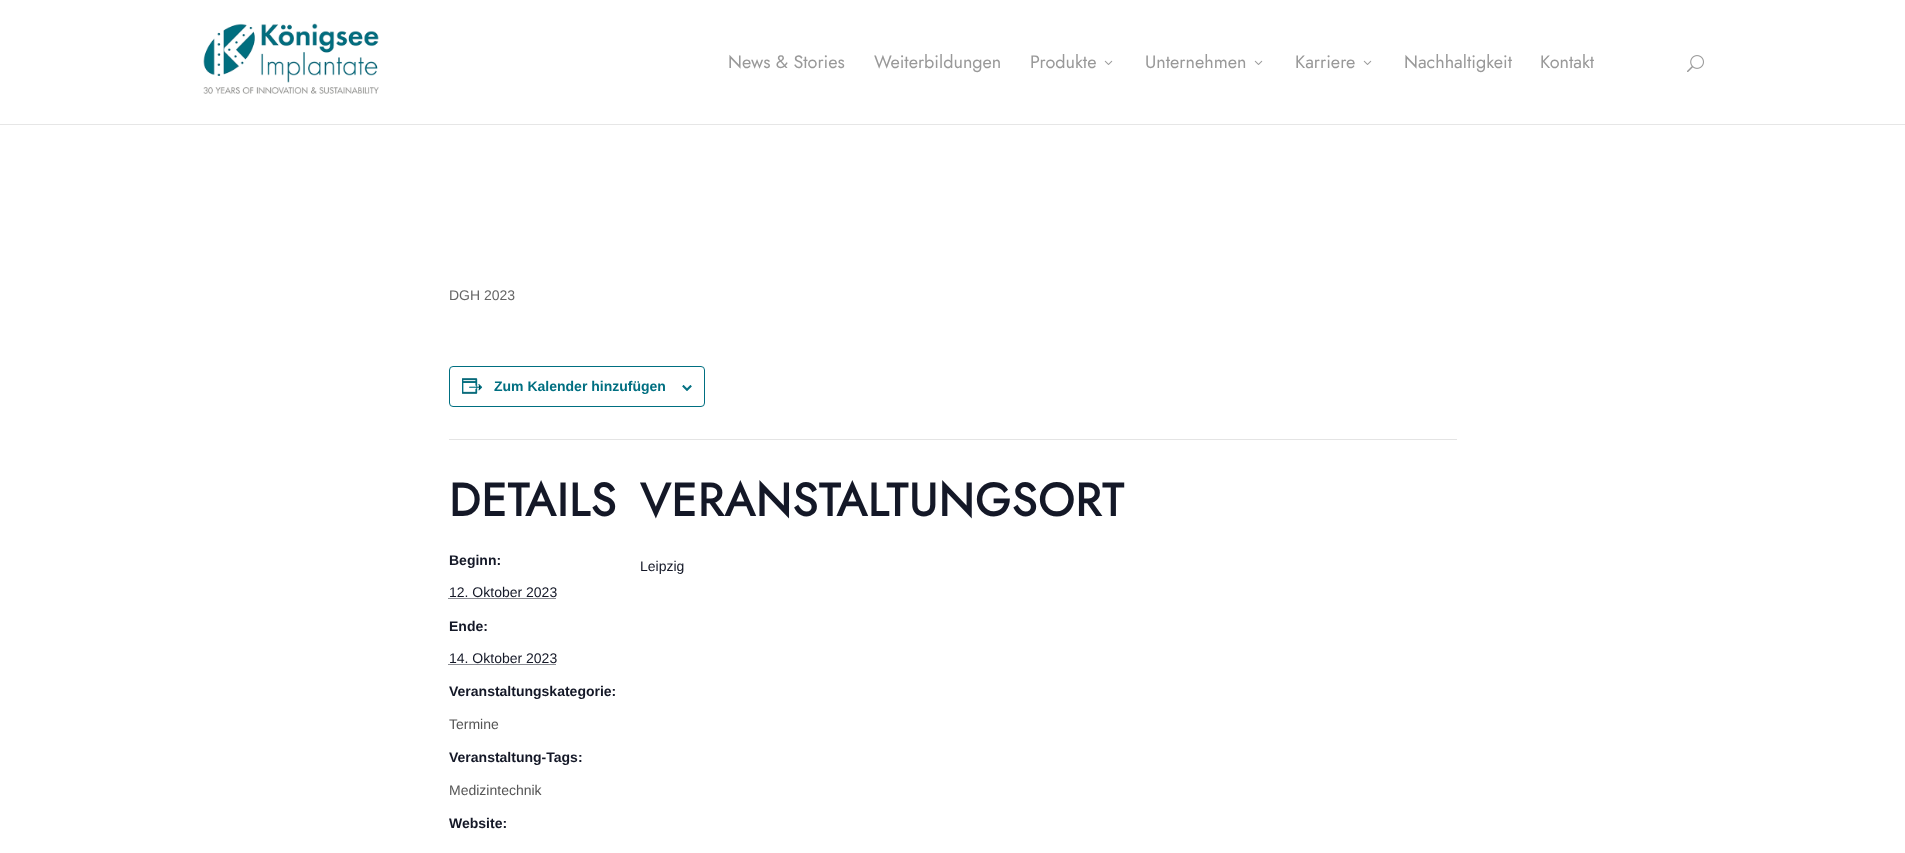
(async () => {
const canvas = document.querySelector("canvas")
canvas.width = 1905
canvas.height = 853
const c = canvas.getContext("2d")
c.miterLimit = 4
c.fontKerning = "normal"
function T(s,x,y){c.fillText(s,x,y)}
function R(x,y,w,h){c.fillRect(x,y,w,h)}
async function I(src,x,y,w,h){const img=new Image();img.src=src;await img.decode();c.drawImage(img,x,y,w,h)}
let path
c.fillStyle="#fff"
R(0,0,1905,853)
c.fillStyle="#e6e6e6"
R(0,124,1905,1)
await I("1.png",203,23,176,71)
c.font="18px Jost"
c.fillStyle="#999"
T("News & Stories",728,68)
T("Weiterbildungen",874,68)
T("Produkte",1030,68)
await I("2.png",1104,60,9,5)
T("Unternehmen",1145,68)
await I("2.png",1254,60,9,5)
T("Karriere",1295,68)
await I("2.png",1363,60,9,5)
T("Nachhaltigkeit",1404,68)
T("Kontakt",1540,68)
await I("3.png",1687,55,17,17)
c.font="14px Liberation Sans"
c.fillStyle="#666"
T("DGH 2023",449,300)
c.beginPath()
c.roundRect(449.5,366.5,255,40,3.5)
c.strokeStyle="#006f81"
c.stroke()
await I("4.png",462,378,21,16)
c.font="bold 14px Liberation Sans"
c.fillStyle="#006f81"
T("Zum Kalender hinzufügen",494,391)
await I("5.png",682,385,10,6)
c.fillStyle="#e4e4e4"
R(449,439,1008,1)
c.letterSpacing="1px"
c.font="bold 46px Jost"
c.fillStyle="#141827"
T("DETAILS",449,516)
c.letterSpacing="0px"
c.font="bold 14px Liberation Sans"
T("Beginn:",449,565)
c.font="14px Liberation Sans"
T("12. Oktober 2023",449,597)
path = new Path2D("M448.5 598.5h108")
c.strokeStyle="#141827"
c.setLineDash([1,1])
c.stroke(path)
c.font="bold 14px Liberation Sans"
T("Ende:",449,631)
c.font="14px Liberation Sans"
T("14. Oktober 2023",449,663)
path = new Path2D("M448.5 664.5h108")
c.stroke(path)
c.font="bold 14px Liberation Sans"
T("Veranstaltungskategorie:",449,696)
c.font="14px Liberation Sans"
c.fillStyle="#555"
T("Termine",449,729)
c.font="bold 14px Liberation Sans"
c.fillStyle="#141827"
T("Veranstaltung-Tags:",449,762)
c.font="14px Liberation Sans"
c.fillStyle="#555"
T("Medizintechnik",449,795)
c.font="bold 14px Liberation Sans"
c.fillStyle="#141827"
T("Website:",449,828)
c.letterSpacing="1px"
c.font="bold 46px Jost"
T("VERANSTALTUNGSORT",640,516)
c.letterSpacing="0px"
c.font="14px Liberation Sans"
T("Leipzig",640,571)
})()
